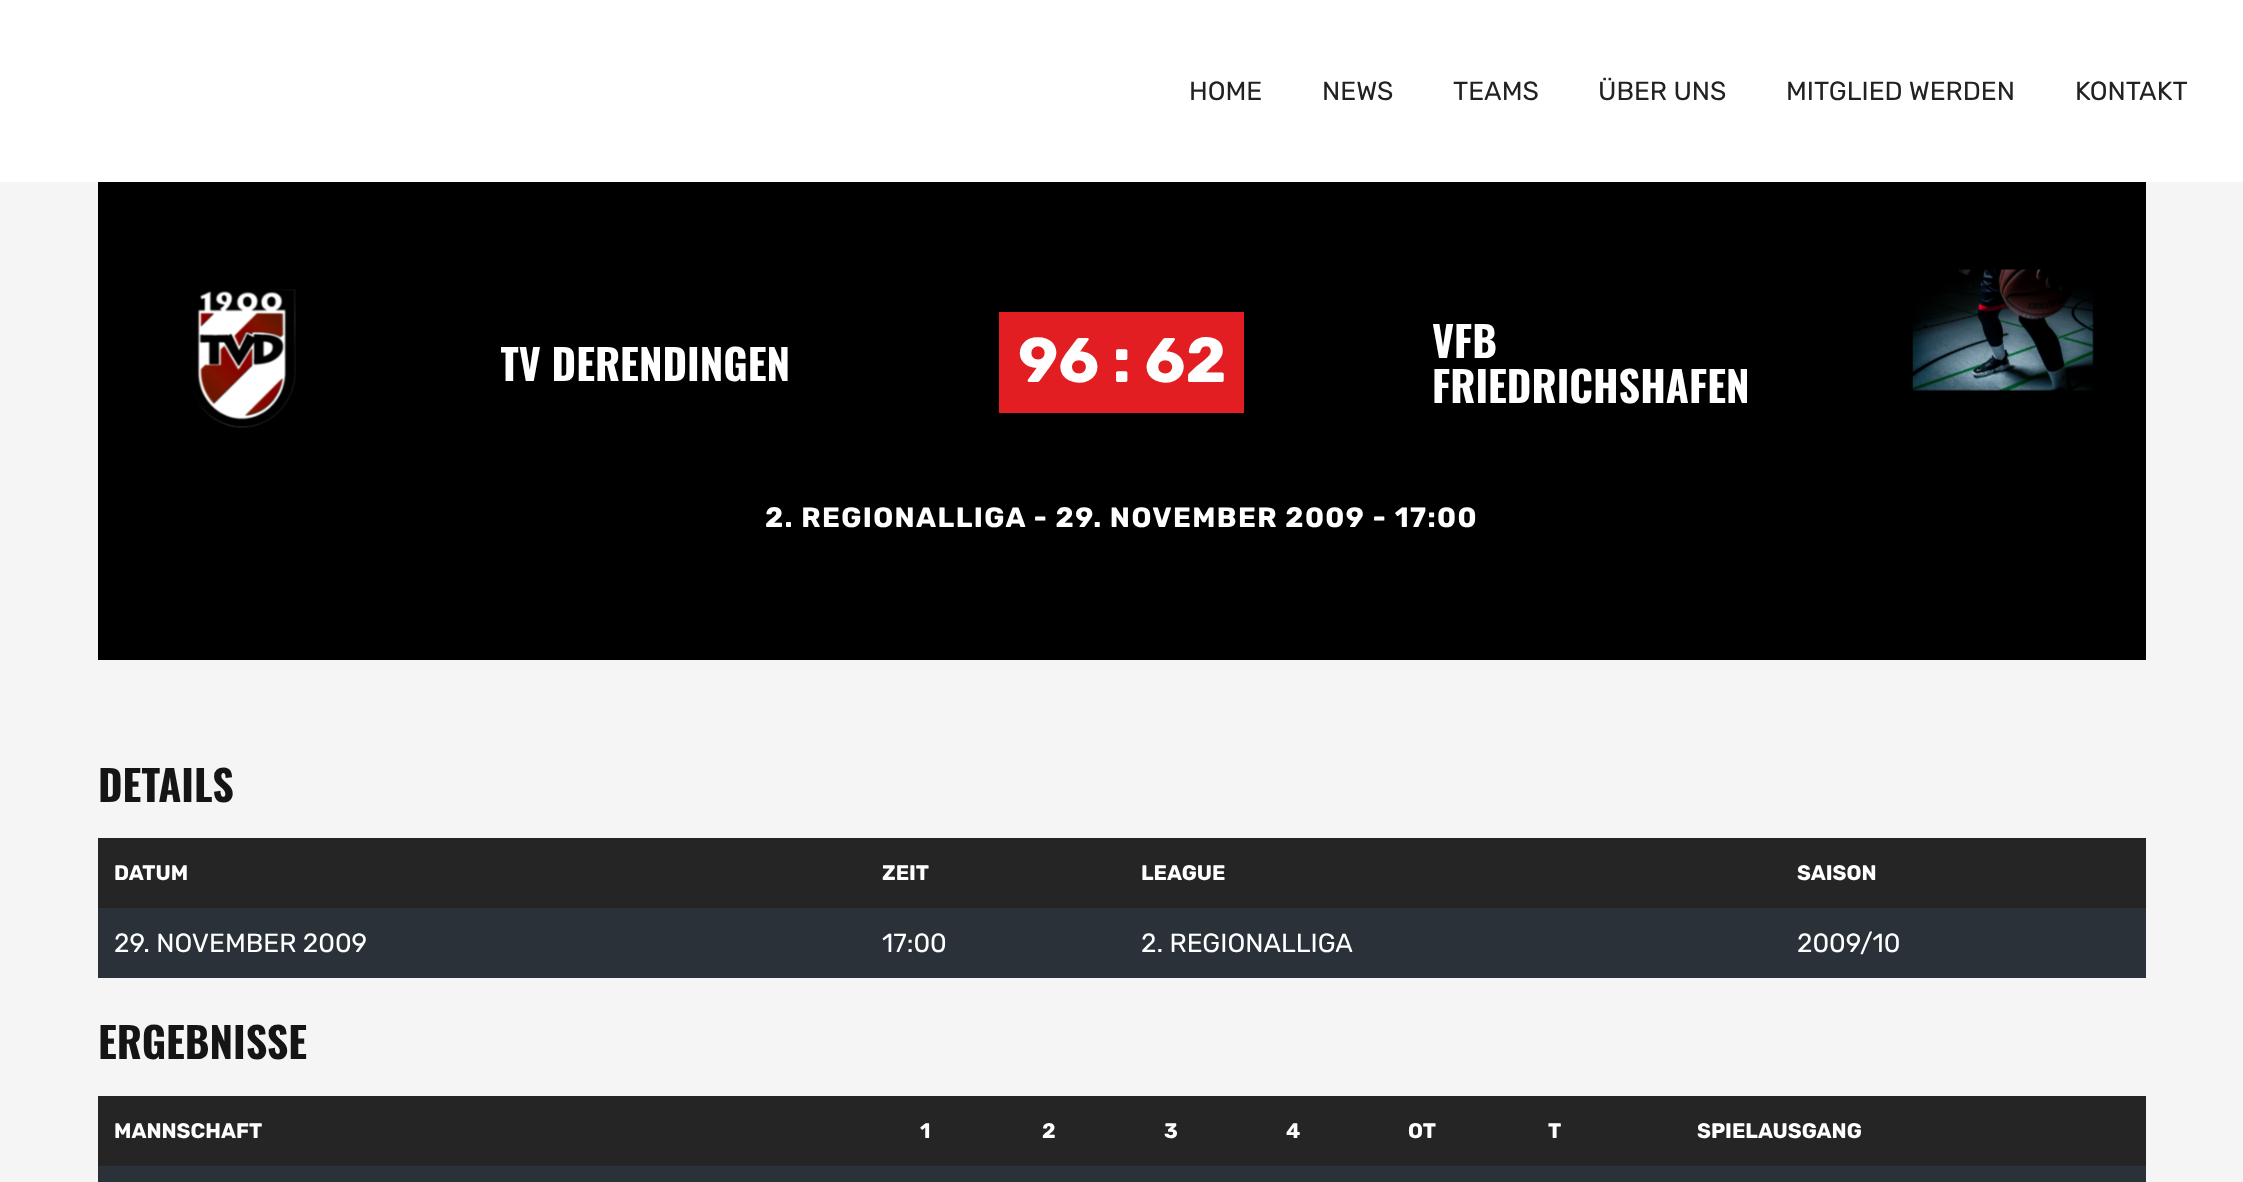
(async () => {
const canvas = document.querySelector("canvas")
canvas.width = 2243
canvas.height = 1182
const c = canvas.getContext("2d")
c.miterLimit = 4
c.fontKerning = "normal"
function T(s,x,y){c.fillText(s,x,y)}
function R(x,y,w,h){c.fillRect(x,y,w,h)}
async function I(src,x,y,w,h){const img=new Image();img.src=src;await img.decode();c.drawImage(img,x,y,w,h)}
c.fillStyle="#f5f5f5"
R(0,0,2243,1182)
c.fillStyle="#fff"
R(0,0,2243,182)
c.font="26.25px Rubik"
c.fillStyle="#222"
T("HOME",1189,100)
T("NEWS",1322,100)
T("TEAMS",1453,100)
T("ÜBER UNS",1598,100)
T("MITGLIED WERDEN",1786,100)
T("KONTAKT",2075,100)
c.fillStyle="#000"
R(98,182,2048,478)
await I("1.png",193,289,103,139)
c.save()
c.beginPath()
c.rect(501,340,288,45)
c.clip()
c.font="bold 42px Oswald"
c.fillStyle="#fff"
T("TV DERENDINGEN",500,381)
c.restore()
c.fillStyle="#e21e22"
R(999,312,245,101)
c.font="bold 63px Rubik"
c.fillStyle="#fff"
T("96 : 62",1018,382)
c.font="bold 42px Oswald"
T("VFB",1432,358)
T("FRIEDRICHSHAFEN",1432,403)
await I("2.png",1912,269,182,122)
c.letterSpacing="1.4px"
c.font="bold 28px Rubik"
T("2. REGIONALLIGA - 29. NOVEMBER 2009 - 17:00",765,527)
c.letterSpacing="0px"
c.font="bold 42px Oswald"
c.fillStyle="#151515"
T("DETAILS",98,802)
c.fillStyle="#252525"
R(98,838,2048,70)
c.font="bold 21px Rubik"
c.fillStyle="#fff"
T("DATUM",114,880)
T("ZEIT",882,880)
T("LEAGUE",1141,880)
T("SAISON",1797,880)
c.fillStyle="#2a3138"
R(98,908,2048,70)
c.font="26.25px Rubik"
c.fillStyle="#fff"
T("29. NOVEMBER 2009",114,952)
T("17:00",882,952)
T("2. REGIONALLIGA",1141,952)
T("2009/10",1797,952)
c.font="bold 42px Oswald"
c.fillStyle="#151515"
T("ERGEBNISSE",98,1059)
c.fillStyle="#252525"
R(98,1096,2048,70)
c.font="bold 21px Rubik"
c.fillStyle="#fff"
T("MANNSCHAFT",114,1138)
T("1",920,1138)
T("2",1042,1138)
T("3",1164,1138)
T("4",1286,1138)
T("OT",1408,1138)
T("T",1548,1138)
T("SPIELAUSGANG",1697,1138)
c.fillStyle="#2a3138"
R(98,1166,2048,16)
})()
